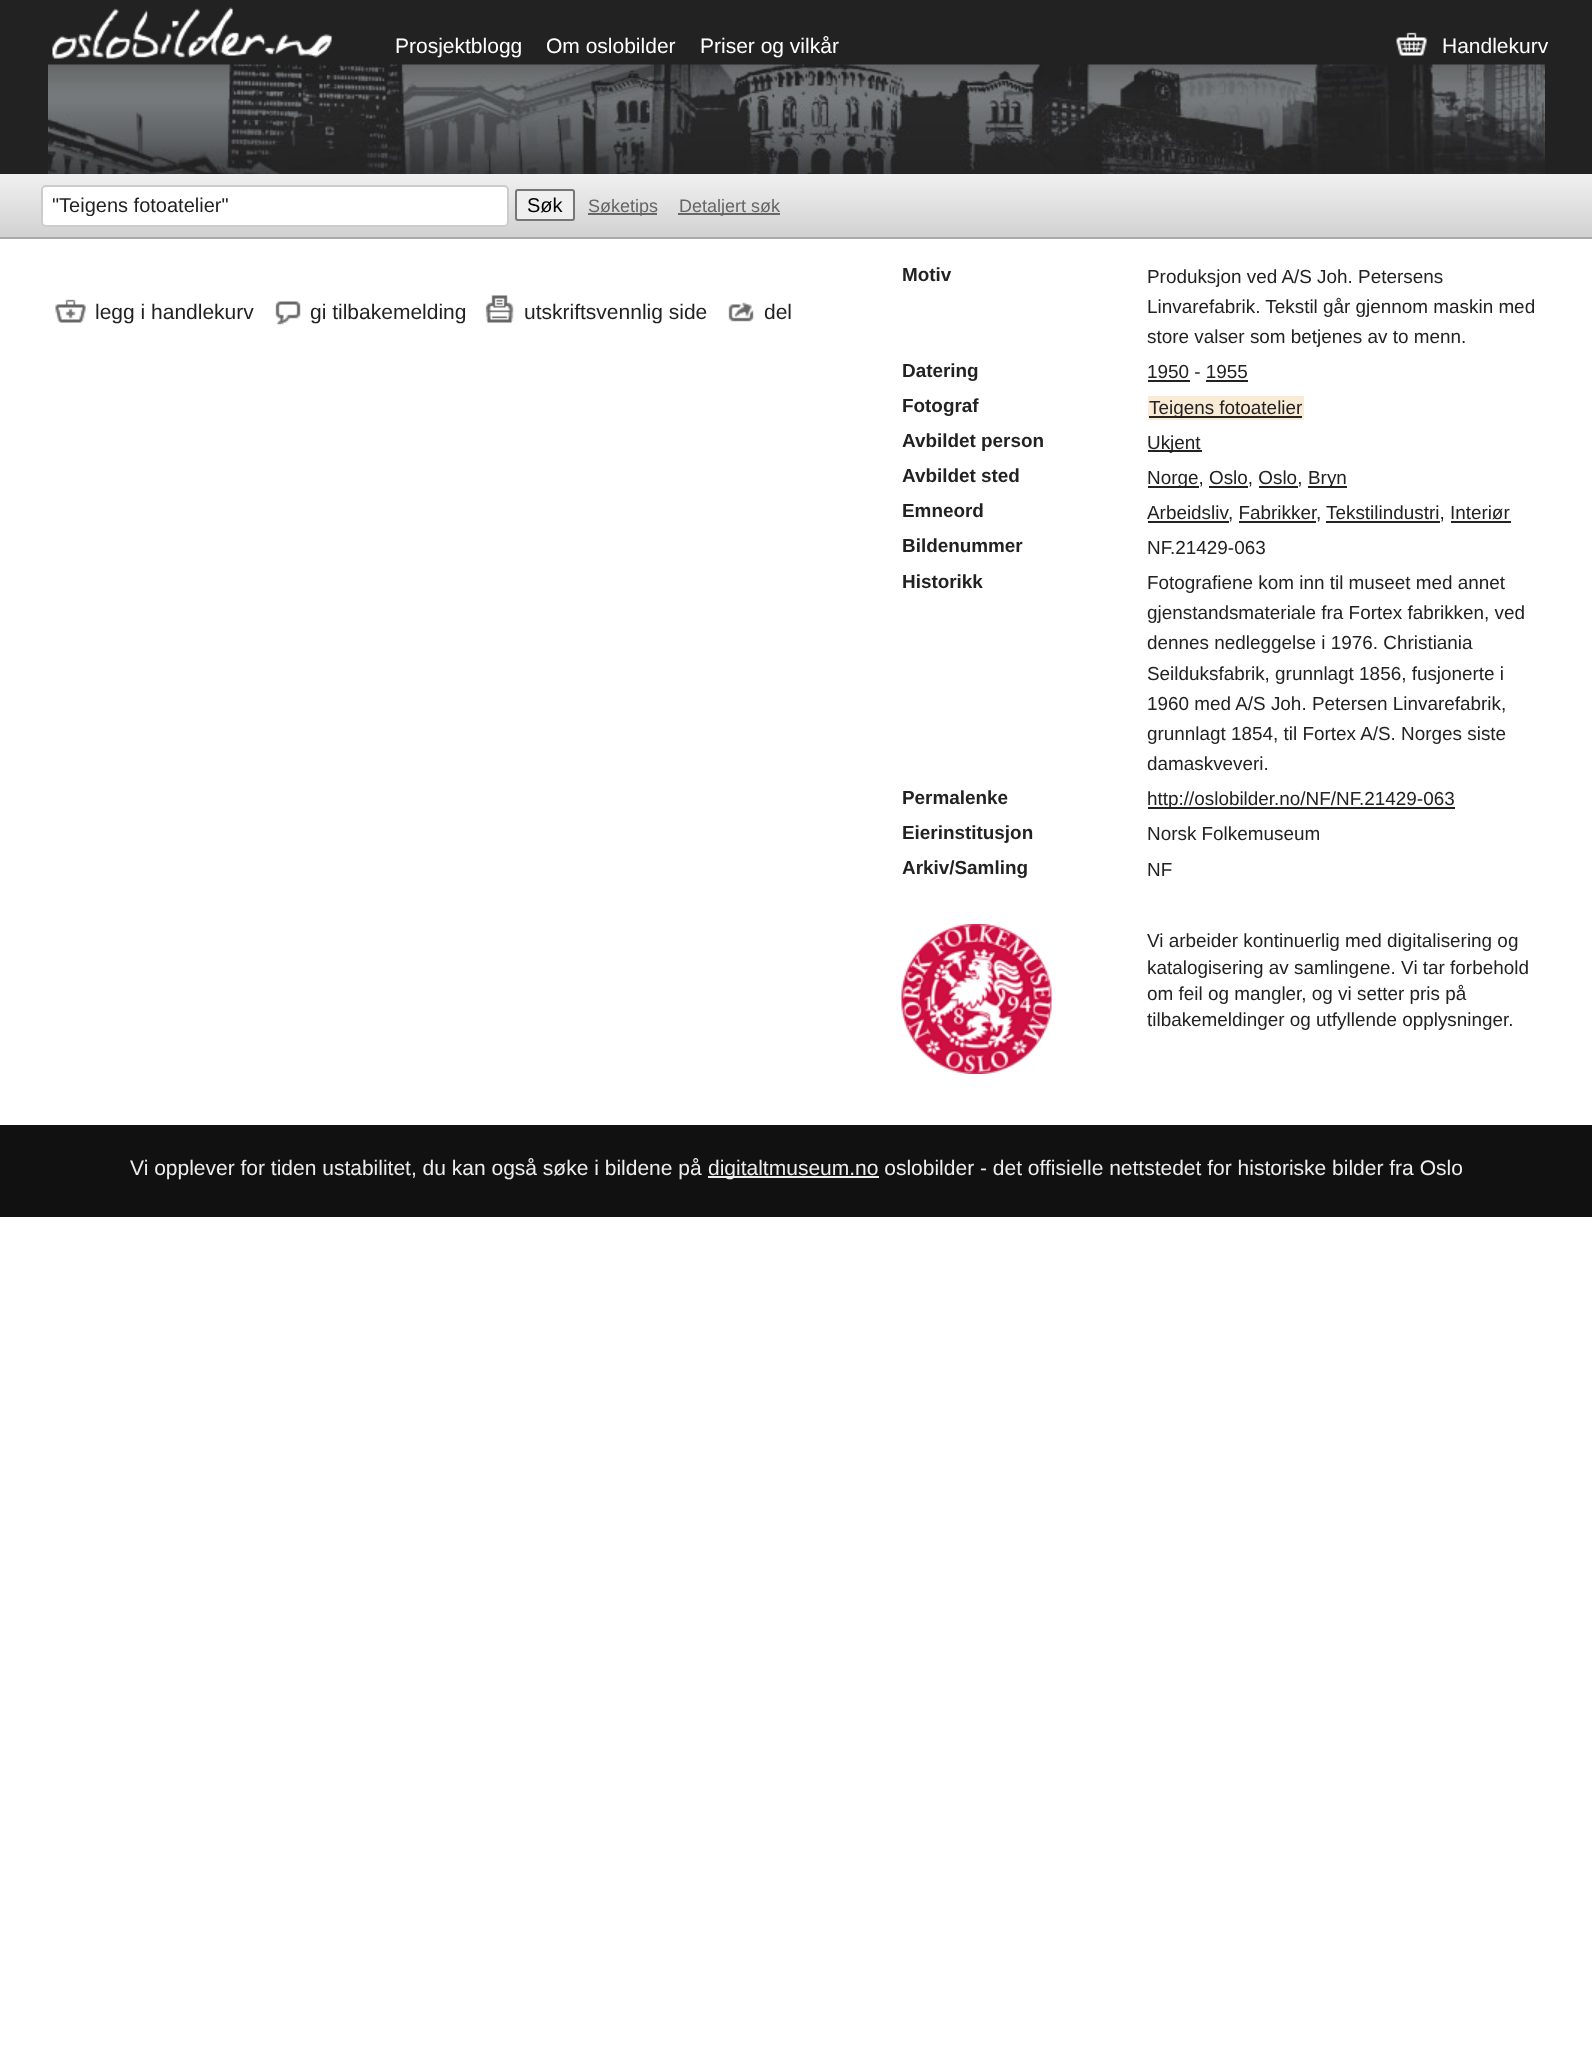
(async () => {
const canvas = document.querySelector("canvas")
canvas.width = 1592
canvas.height = 2063
const c = canvas.getContext("2d")
c.miterLimit = 4
c.fontKerning = "normal"
function T(s,x,y){c.fillText(s,x,y)}
function R(x,y,w,h){c.fillRect(x,y,w,h)}
async function I(src,x,y,w,h){const img=new Image();img.src=src;await img.decode();c.drawImage(img,x,y,w,h)}
let gradient
c.fillStyle="#fff"
R(0,0,1592,2063)
c.fillStyle="#222"
R(0,0,1592,174)
await I("1.png",48,64,1497,110)
await I("2.png",52,7,281,52)
c.font="21px Liberation Sans"
c.fillStyle="#fff"
T("Prosjektblogg",395,53)
T("Om oslobilder",546,53)
T("Priser og vilkår",700,53)
await I("3.png",1396,32,31,24)
T("Handlekurv",1442,53)
gradient = c.createLinearGradient(797,174,797,237)
gradient.addColorStop(0,"#f1f1f1")
gradient.addColorStop(1,"#d1d1d1")
c.fillStyle = gradient
R(0,174,1592,63)
c.fillStyle="#aaa"
R(0,237,1592,2)
c.fillStyle="#fff"
c.beginPath()
c.roundRect(42,186,466,40,4)
c.fill()
c.strokeStyle="#ccc"
c.lineWidth=2
c.stroke()
c.save()
c.beginPath()
c.rect(53,194,445,22)
c.clip()
c.font="20px Liberation Sans"
c.fillStyle="#222"
T("\"Teigens fotoatelier\"",52,212)
c.restore()
c.fillStyle="#efefef"
c.beginPath()
c.roundRect(516,190,58,30,2)
c.fill()
c.strokeStyle="#767676"
c.stroke()
c.font="20px Liberation Sans"
c.fillStyle="#000"
T("Søk",527,212)
c.fillStyle="#666"
R(588,213,69,2)
c.font="18px Liberation Sans"
T("Søketips",588,212)
R(678,213,102,2)
T("Detaljert søk",679,212)
await I("4.png",55,299,31,24)
c.font="21px Liberation Sans"
c.fillStyle="#222"
T("legg i handlekurv",95,319)
await I("5.png",275,301,26,24)
T("gi tilbakemelding",310,319)
await I("6.png",485,295,29,28)
T("utskriftsvennlig side",524,319)
await I("7.png",728,302,26,20)
T("del",764,319)
c.font="bold 18.9px Liberation Sans"
T("Motiv",902,281)
c.font="18.9px Liberation Sans"
T("Produksjon ved A/S Joh. Petersens",1147,283)
T("Linvarefabrik. Tekstil går gjennom maskin med",1147,313)
T("store valser som betjenes av to menn.",1147,343)
c.font="bold 18.9px Liberation Sans"
T("Datering",902,377)
c.font="18.9px Liberation Sans"
T("1950 - 1955",1147,378)
R(1148,380,42,2)
R(1206,380,42,2)
c.font="bold 18.9px Liberation Sans"
T("Fotograf",902,412)
c.fillStyle="#faebd7"
R(1148,396,156,24)
c.fillStyle="#222"
R(1149,416,153,2)
c.font="18.9px Liberation Sans"
T("Teigens fotoatelier",1149,414)
c.font="bold 18.9px Liberation Sans"
T("Avbildet person",902,447)
R(1148,450,54,2)
c.font="18.9px Liberation Sans"
T("Ukjent",1147,449)
c.font="bold 18.9px Liberation Sans"
T("Avbildet sted",902,482)
R(1148,486,51,2)
c.font="18.9px Liberation Sans"
T("Norge, Oslo, Oslo,",1147,484)
R(1308,486,39,2)
T("Bryn",1308,484)
R(1209,486,39,2)
R(1259,486,39,2)
c.font="bold 18.9px Liberation Sans"
T("Emneord",902,517)
c.font="18.9px Liberation Sans"
T("Arbeidsliv",1147,519)
R(1148,521,81,2)
T(", Fabrikker",1228,519)
T(",",1316,519)
R(1326,521,114,2)
T("Tekstilindustri, Interiør",1326,519)
R(1239,521,77,2)
R(1451,521,60,2)
c.font="bold 18.9px Liberation Sans"
T("Bildenummer",902,552)
c.font="18.9px Liberation Sans"
T("NF.21429-063",1147,554)
c.font="bold 18.9px Liberation Sans"
T("Historikk",902,588)
c.font="18.9px Liberation Sans"
T("Fotografiene kom inn til museet med annet",1147,589)
T("gjenstandsmateriale fra Fortex fabrikken, ved",1147,619)
T("dennes nedleggelse i 1976. Christiania",1147,649)
T("Seilduksfabrik, grunnlagt 1856, fusjonerte i",1147,680)
T("1960 med A/S Joh. Petersen Linvarefabrik,",1147,710)
T("grunnlagt 1854, til Fortex A/S. Norges siste",1147,740)
T("damaskveveri.",1147,770)
c.font="bold 18.9px Liberation Sans"
T("Permalenke",902,804)
R(1148,807,307,2)
c.font="18.9px Liberation Sans"
T("http://oslobilder.no/NF/NF.21429-063",1147,805)
c.font="bold 18.9px Liberation Sans"
T("Eierinstitusjon",902,839)
c.font="18.9px Liberation Sans"
T("Norsk Folkemuseum",1147,840)
c.font="bold 18.9px Liberation Sans"
T("Arkiv/Samling",902,874)
c.font="18.9px Liberation Sans"
T("NF",1147,876)
await I("8.png",901,924,151,150)
T("Vi arbeider kontinuerlig med digitalisering og",1147,947)
T("katalogisering av samlingene. Vi tar forbehold",1147,974)
T("om feil og mangler, og vi setter pris på",1147,1000)
T("tilbakemeldinger og utfyllende opplysninger.",1147,1026)
c.fillStyle="#111"
R(0,1125,1592,92)
c.font="21px Liberation Sans"
c.fillStyle="#eee"
T("Vi opplever for tiden ustabilitet, du kan også søke i bildene på",130,1175)
R(708,1176,171,2)
T("digitaltmuseum.no oslobilder - det offisielle nettstedet for historiske bilder fra Oslo",708,1175)
})()
